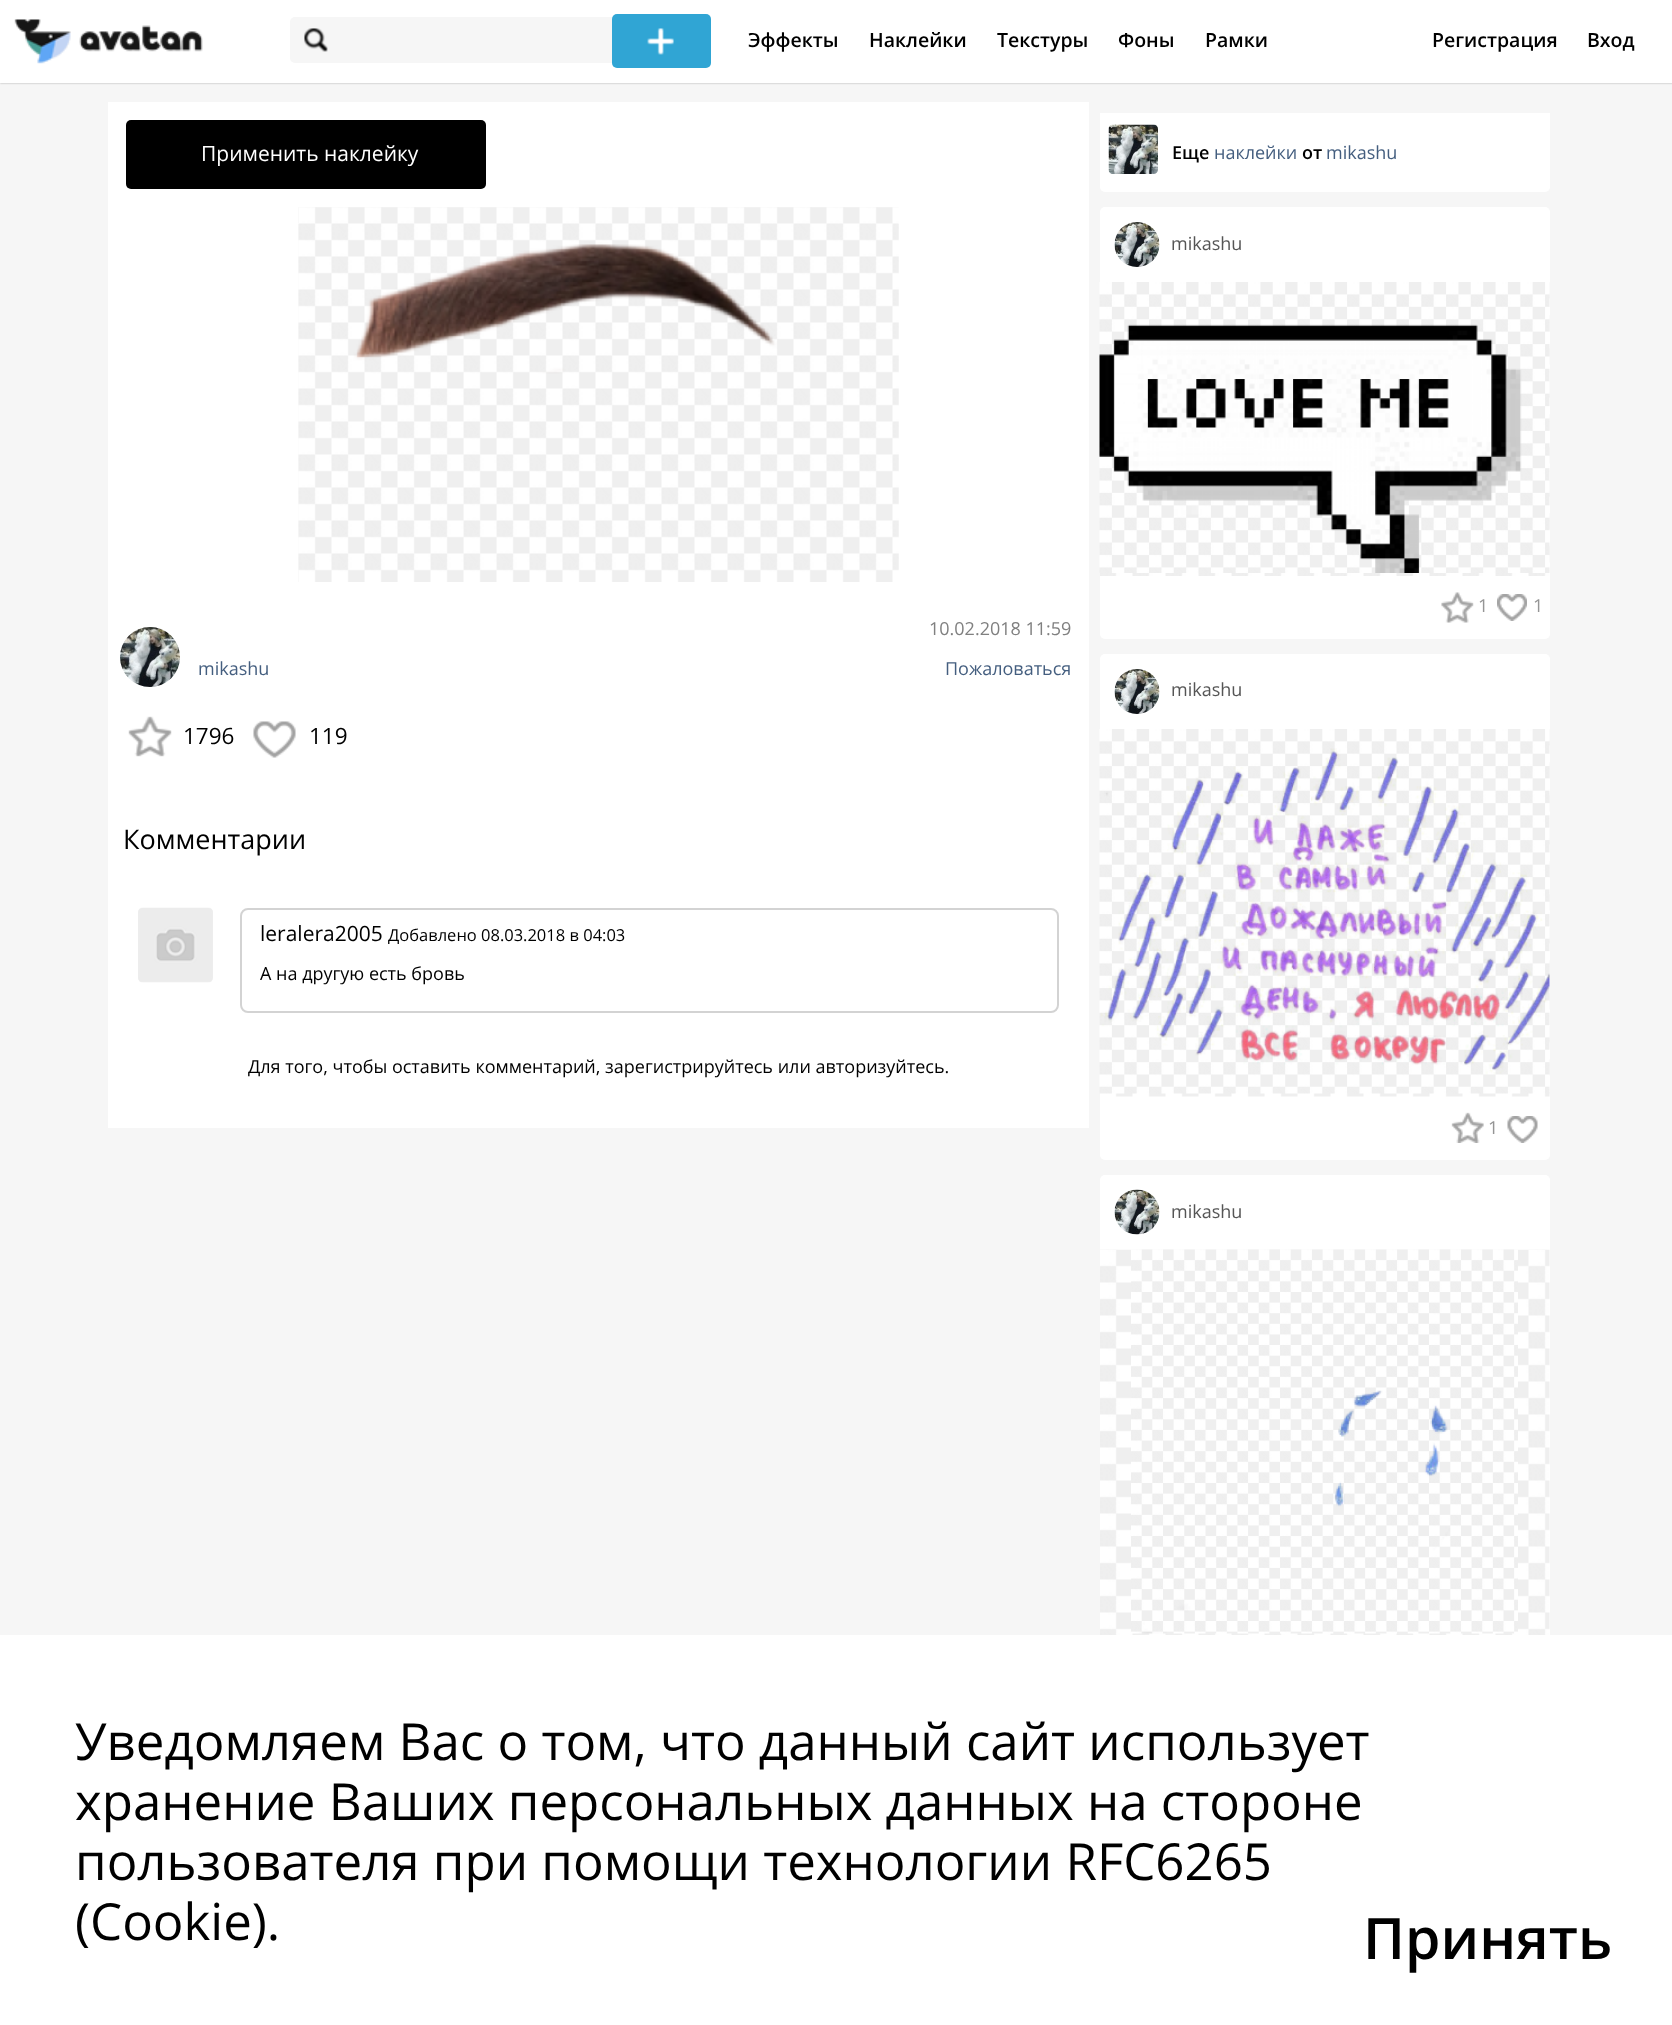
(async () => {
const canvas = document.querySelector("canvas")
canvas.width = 1672
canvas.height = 2025
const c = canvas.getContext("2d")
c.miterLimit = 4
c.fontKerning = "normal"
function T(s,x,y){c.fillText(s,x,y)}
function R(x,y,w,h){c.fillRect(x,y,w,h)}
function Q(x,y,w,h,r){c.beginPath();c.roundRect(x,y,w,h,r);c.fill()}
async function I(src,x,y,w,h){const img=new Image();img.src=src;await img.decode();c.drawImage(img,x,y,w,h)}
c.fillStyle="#f6f6f6"
R(0,0,1672,2025)
c.fillStyle="#0000004d"
c.filter="blur(1px)"
c.beginPath()
c.rect(0,0,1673,83)
c.fill()
c.filter="none"
c.fillStyle="#fff"
R(0,0,1672,83)
await I("1.png",14,19,189,45)
c.fillStyle="#f6f6f6"
Q(290,17,348,46,5)
await I("2.png",304,28,24,24)
c.fillStyle="#30a5d4"
Q(612,14,99,54,5)
await I("3.png",647,28,27,27)
c.font="600 19.5px Open Sans"
c.fillStyle="#000"
T("Эффекты",748,47)
T("Наклейки",869,47)
T("Текстуры",997,47)
T("Фоны",1118,47)
T("Рамки",1205,47)
T("Регистрация",1432,47)
T("Вход",1587,47)
c.fillStyle="#fff"
R(108,102,981,1026)
c.fillStyle="#000"
Q(126,120,360,69,5)
c.font="21px Open Sans"
c.fillStyle="#fff"
T("Применить наклейку",201,161)
await I("4.png",298,207,601,375)
await I("5.png",298,224,601,346)
await I("6.png",120,627,60,60)
c.font="18px Open Sans"
c.fillStyle="#445e7f"
T("mikashu",198,675)
c.fillStyle="#808080"
T("10.02.2018 11:59",929,635)
c.fillStyle="#445e7f"
T("Пожаловаться",945,675)
await I("7.png",128,716,44,41)
c.font="22.5px Open Sans"
c.fillStyle="#000"
T("1796",183,744)
await I("8.png",253,721,43,37)
T("119",309,744)
c.font="27px Open Sans"
T("Комментарии",123,849)
await I("9.png",138,907,75,76)
c.beginPath()
c.roundRect(241,909,817,103,7)
c.strokeStyle="#d3d3d3"
c.lineWidth=2
c.stroke()
c.font="21px Open Sans"
T("leralera2005",260,941)
c.font="16.5px Open Sans"
T("Добавлено 08.03.2018 в 04:03",388,941)
c.font="18px Open Sans"
T("А на другую есть бровь",260,980)
T("Для того, чтобы оставить комментарий, зарегистрируйтесь или авторизуйтесь.",248,1073)
c.fillStyle="#fff"
c.beginPath()
c.roundRect(1100,113,450,79,[0,0,5,5])
c.fill()
await I("10.png",1108,124,50,50)
c.font="600 18px Open Sans"
c.fillStyle="#000"
T("Еще",1172,159)
c.font="18px Open Sans"
c.fillStyle="#445e7f"
T("наклейки",1214,159)
c.font="600 18px Open Sans"
c.fillStyle="#000"
T("от",1302,159)
c.font="18px Open Sans"
c.fillStyle="#445e7f"
T("mikashu",1326,159)
c.fillStyle="#fff"
Q(1100,207,450,432,5)
await I("11.png",1114,222,46,45)
c.fillStyle="#555"
T("mikashu",1171,250)
await I("12.png",1100,282,450,294)
await I("13.png",1099,282,451,291)
await I("14.png",1441,592,33,31)
c.fillStyle="#959595"
T("1",1478,612)
await I("15.png",1497,594,30,27)
T("1",1533,612)
c.fillStyle="#fff"
Q(1100,654,450,506,5)
await I("16.png",1114,669,46,45)
c.fillStyle="#555"
T("mikashu",1171,696)
await I("17.png",1100,729,450,368)
await I("18.png",1099,729,451,365)
await I("19.png",1451,1112,33,31)
c.fillStyle="#959595"
T("1",1488,1134)
await I("20.png",1507,1116,31,27)
c.fillStyle="#fff"
Q(1100,1175,450,525,5)
await I("21.png",1114,1189,46,46)
c.fillStyle="#555"
T("mikashu",1171,1218)
await I("22.png",1100,1249,450,386)
await I("23.png",1131,1249,387,385)
c.fillStyle="#fff"
R(0,1635,1672,390)
c.font="51px Open Sans"
c.fillStyle="#000"
T("Уведомляем Вас о том, что данный сайт использует",75,1760)
T("хранение Ваших персональных данных на стороне",75,1820)
T("пользователя при помощи технологии RFC6265",75,1880)
T("(Cookie).",75,1940)
c.font="600 57px Open Sans"
T("Принять",1363,1959)
})()
